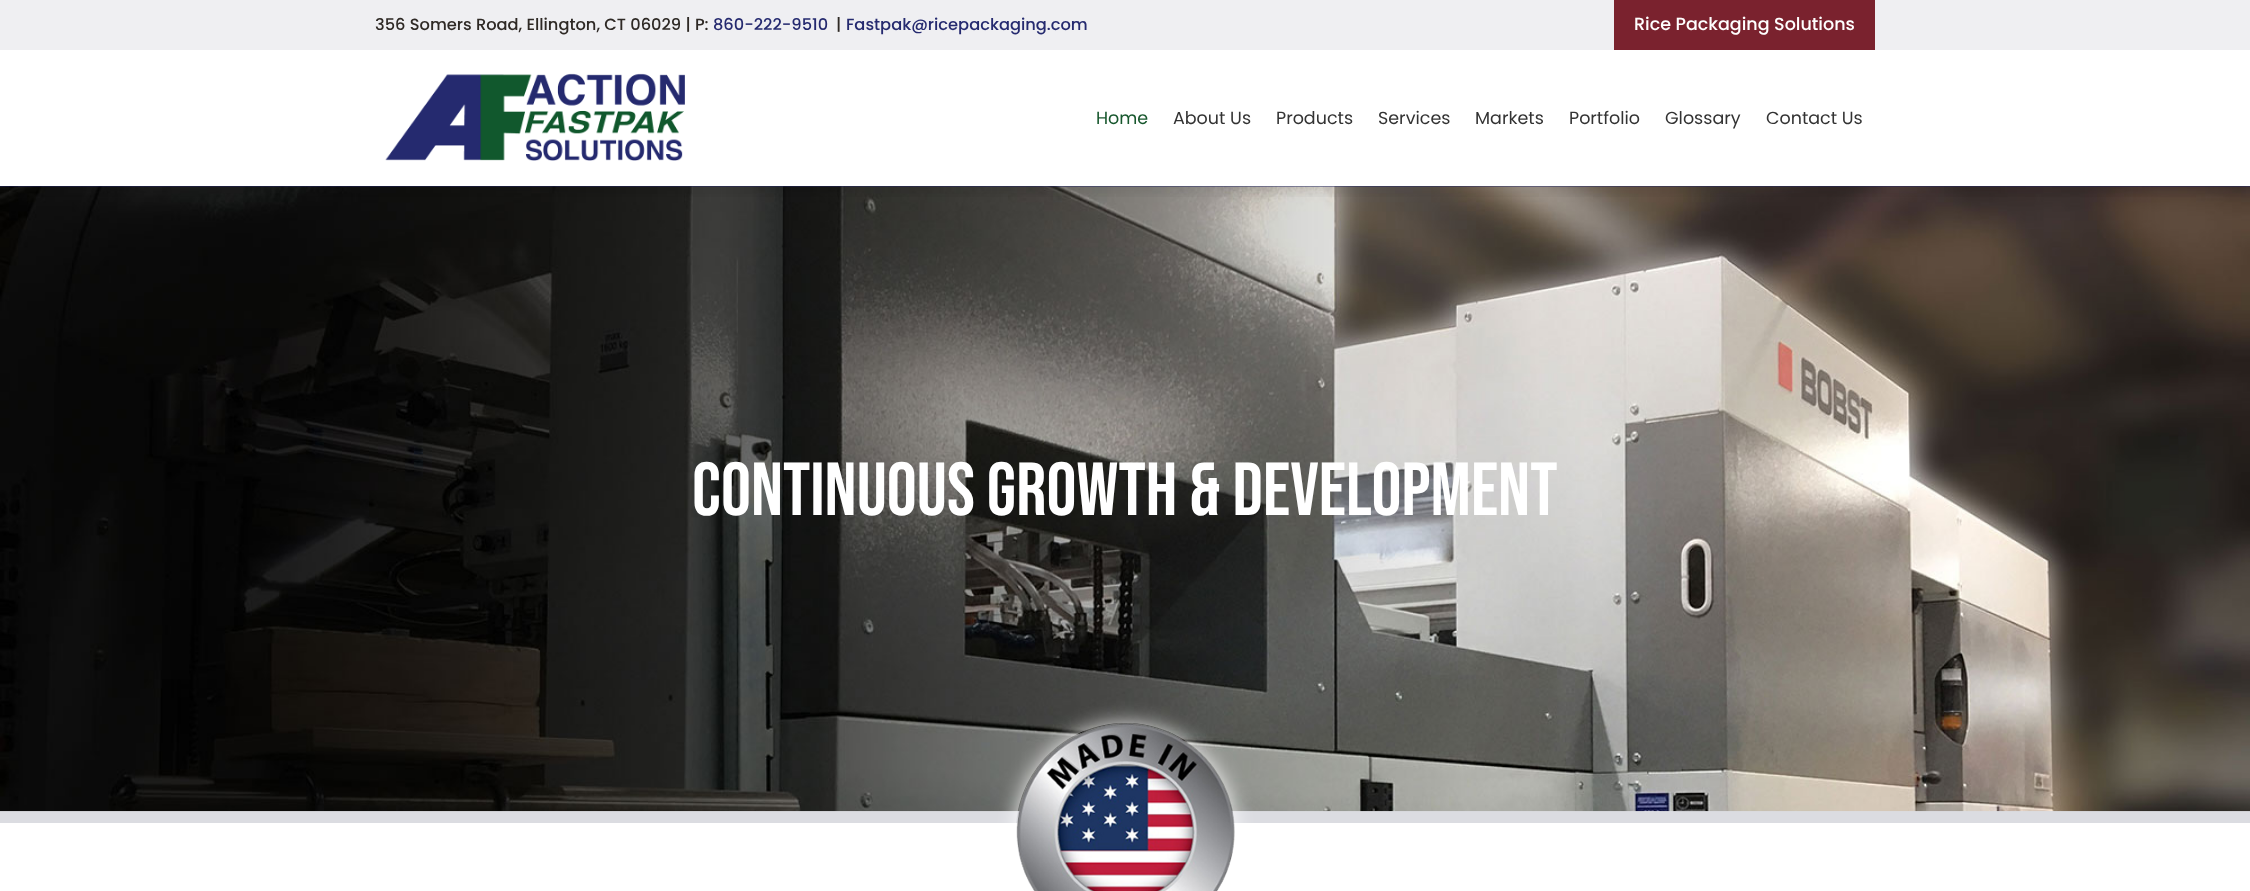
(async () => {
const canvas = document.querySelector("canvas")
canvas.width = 2250
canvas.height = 891
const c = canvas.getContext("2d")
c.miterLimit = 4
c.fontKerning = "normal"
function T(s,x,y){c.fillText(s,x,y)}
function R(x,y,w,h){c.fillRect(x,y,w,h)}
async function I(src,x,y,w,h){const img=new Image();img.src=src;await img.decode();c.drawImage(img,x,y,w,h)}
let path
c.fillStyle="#fff"
R(0,0,2250,891)
c.fillStyle="#efeff2"
R(0,0,2250,50)
c.font="500 16.25px Poppins"
c.fillStyle="#2e2925"
T("356 Somers Road, Ellington, CT 06029 | P:",375,30)
c.fillStyle="#252a6f"
T("860-222-9510",713,30)
c.fillStyle="#2e2925"
T("|",836,30)
c.fillStyle="#252a6f"
T("Fastpak@ricepackaging.com",846,30)
c.fillStyle="#7a222e"
R(1614,0,261,50)
c.font="500 17.5px Poppins"
c.fillStyle="#fff"
T("Rice Packaging Solutions",1634,30)
c.fillStyle="#252a6f"
R(0,186,2250,1)
c.fillStyle="#dbdce1"
R(0,811,2250,12)
await I("2.png",0,186,2250,626)
c.save()
c.beginPath()
c.rect(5,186,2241,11)
c.clip()
c.fillStyle="#00000012"
c.filter="blur(6px)"
c.beginPath()
c.rect(8,73,2235,121)
c.fill()
c.filter="none"
c.restore()
await I("1.png",385,73,300,88)
c.font="17.5px Poppins"
c.fillStyle="#17572d"
T("Home",1096,124)
c.fillStyle="#333"
T("About Us",1173,124)
T("Products",1276,124)
T("Services",1378,124)
T("Markets",1475,124)
T("Portfolio",1569,124)
T("Glossary",1665,124)
T("Contact Us",1766,124)
c.font="75px Bebas Neue"
c.fillStyle="#fff"
T("Continuous Growth & Development",692,515)
c.save()
path = new Path2D("M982 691h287v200h-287zm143 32h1c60 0 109 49 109 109c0 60-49 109-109 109h-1c-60 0-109-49-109-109c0-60 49-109 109-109z")
c.clip(path,"evenodd")
c.filter="blur(11px)"
c.beginPath()
c.roundRect(1016,725,219,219,109.5)
c.fill()
c.filter="none"
c.restore()
await I("3.png",1016,723,219,168)
})()
